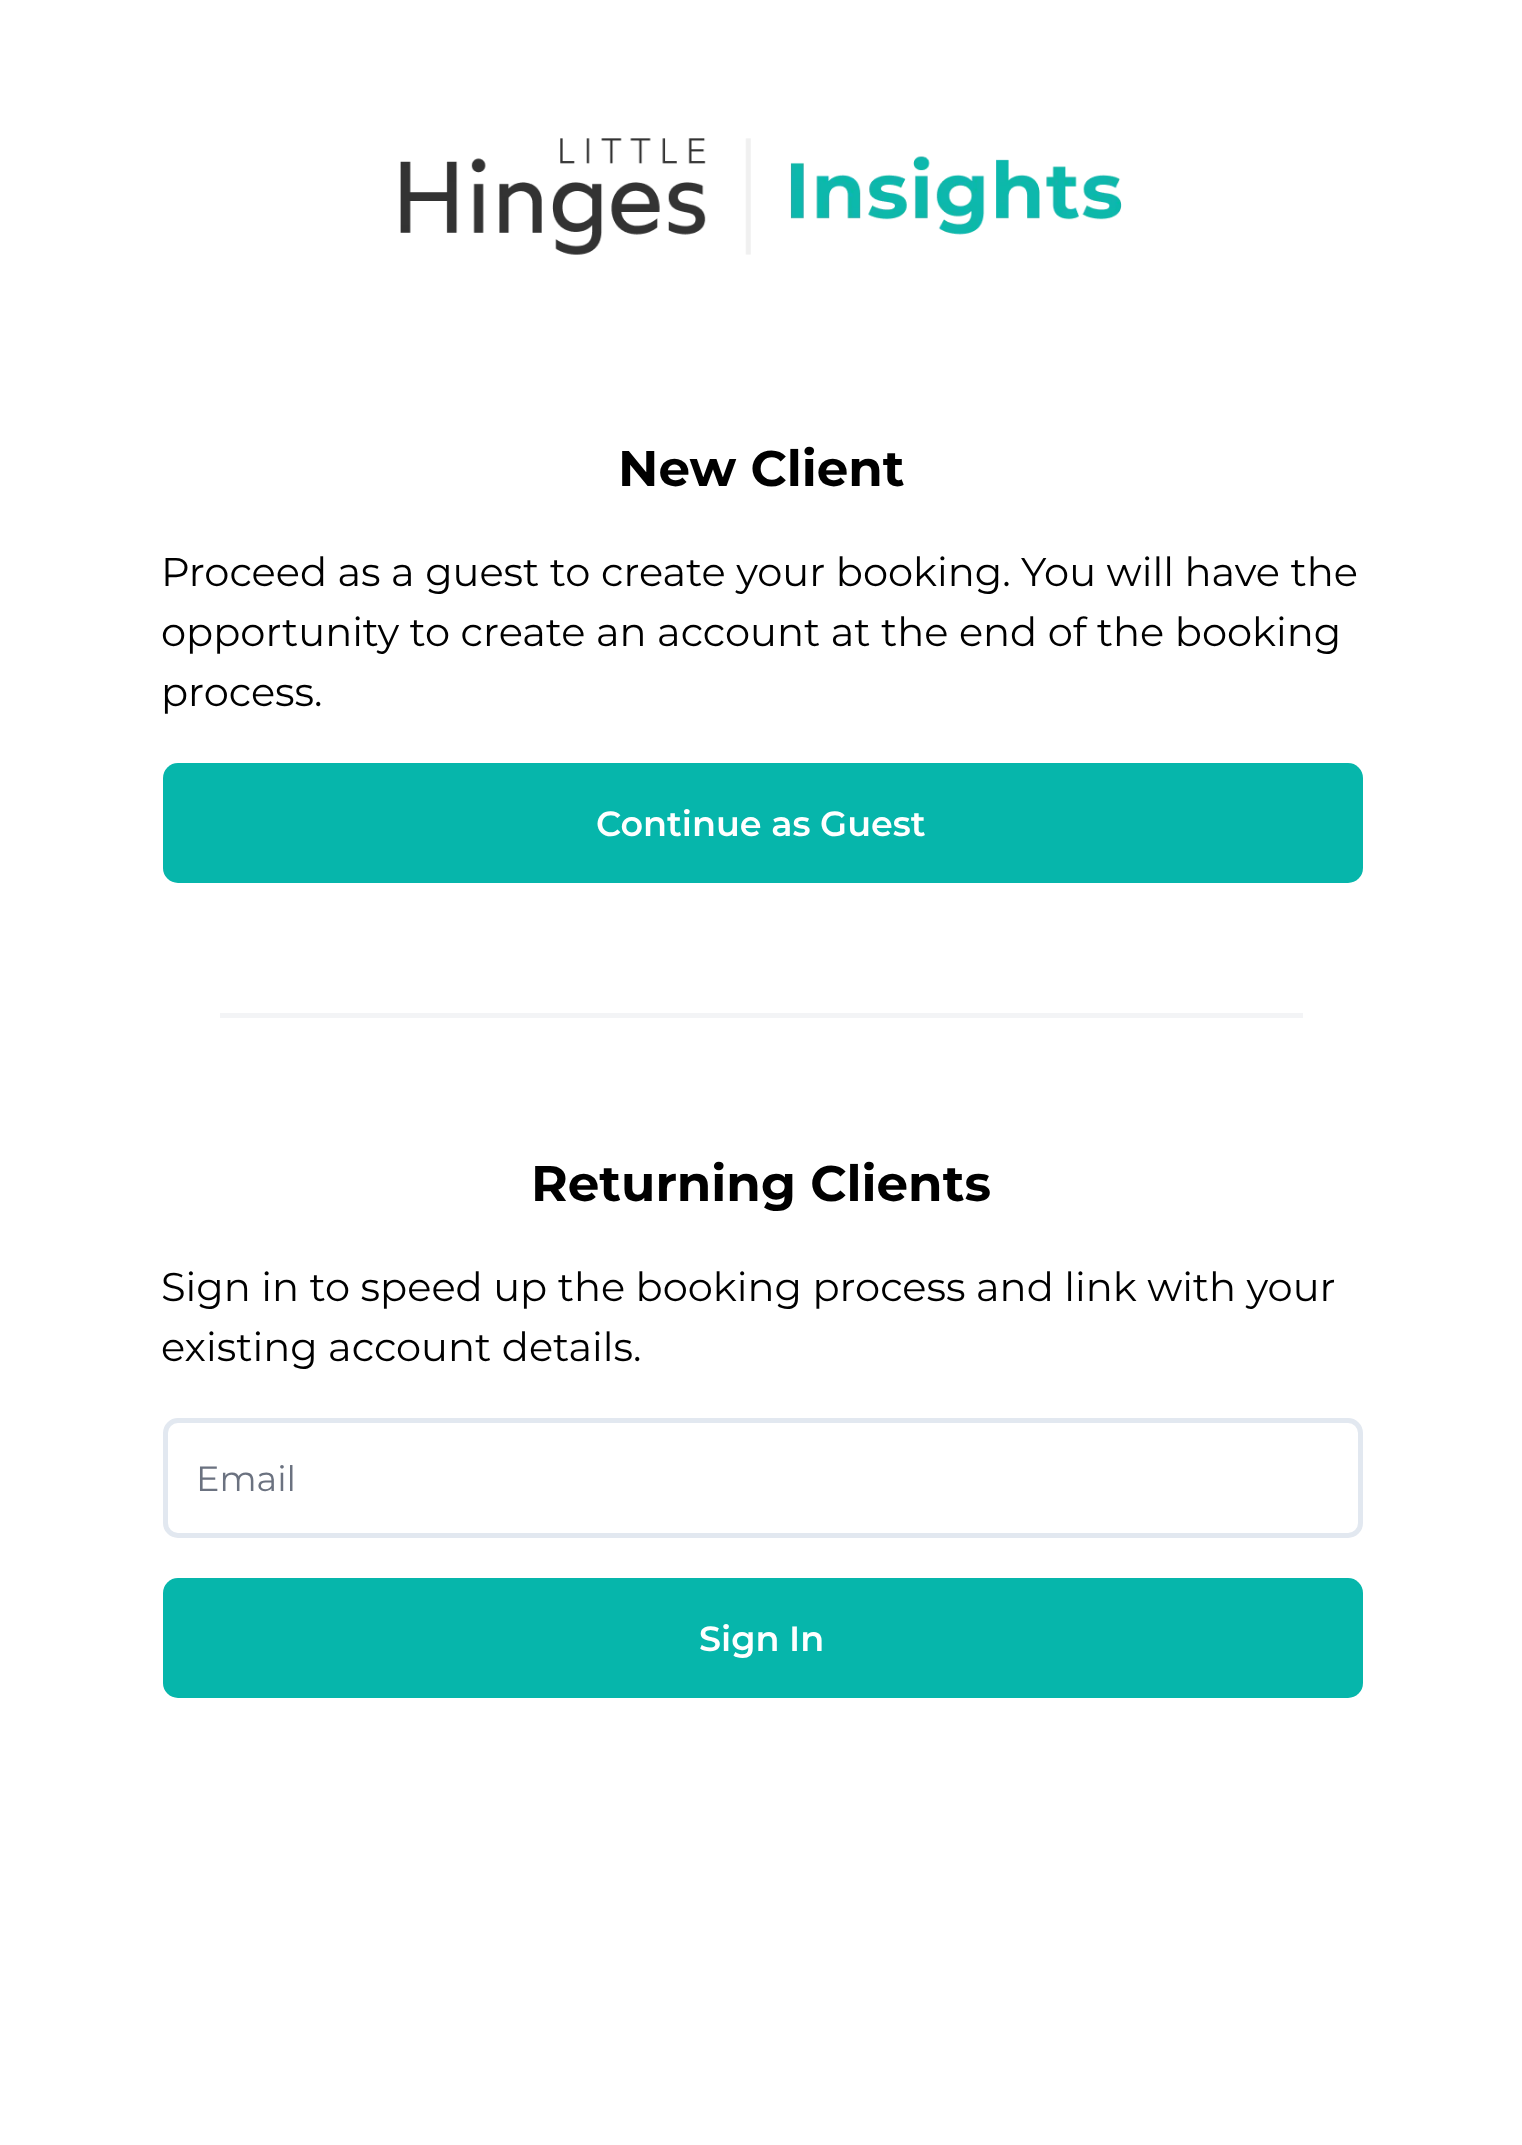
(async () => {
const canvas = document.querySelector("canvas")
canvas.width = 1522
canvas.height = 2145
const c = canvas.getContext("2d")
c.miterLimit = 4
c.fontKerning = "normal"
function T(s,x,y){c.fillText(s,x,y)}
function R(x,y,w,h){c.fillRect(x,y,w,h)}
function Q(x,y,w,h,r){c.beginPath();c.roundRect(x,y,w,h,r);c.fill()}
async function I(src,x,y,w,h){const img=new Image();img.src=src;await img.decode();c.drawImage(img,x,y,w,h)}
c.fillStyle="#fff"
R(0,0,1522,2145)
await I("1.png",400,138,722,117)
c.font="bold 50px Montserrat"
c.fillStyle="#000"
T("New Client",618,486)
c.font="40px Montserrat"
T("Proceed as a guest to create your booking. You will have the",161,586)
T("opportunity to create an account at the end of the booking",161,646)
T("process.",161,706)
c.fillStyle="#06b6ab"
Q(163,763,1200,120,15)
c.font="600 35px Montserrat"
c.fillStyle="#fff"
T("Continue as Guest",596,836)
c.fillStyle="#f3f4f6"
R(220,1013,1083,5)
c.font="bold 50px Montserrat"
c.fillStyle="#000"
T("Returning Clients",531,1201)
c.font="40px Montserrat"
T("Sign in to speed up the booking process and link with your",161,1301)
T("existing account details.",161,1361)
c.beginPath()
c.roundRect(165.5,1420.5,1195,115,12.5)
c.strokeStyle="#e2e8f0"
c.lineWidth=5
c.stroke()
c.font="35px Montserrat"
c.fillStyle="#6b7280"
T("Email",196,1491)
c.fillStyle="#06b6ab"
Q(163,1578,1200,120,15)
c.font="600 35px Montserrat"
c.fillStyle="#fff"
T("Sign In",699,1651)
})()
